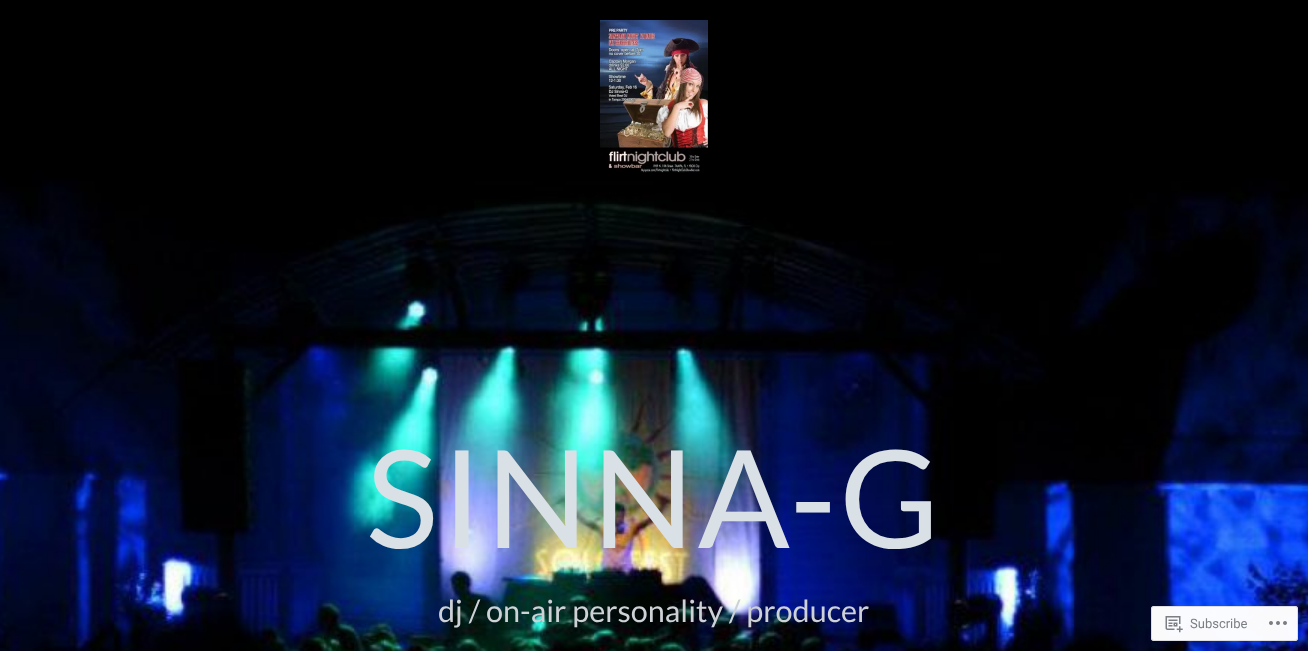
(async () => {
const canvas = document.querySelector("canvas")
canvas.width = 1308
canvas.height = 651
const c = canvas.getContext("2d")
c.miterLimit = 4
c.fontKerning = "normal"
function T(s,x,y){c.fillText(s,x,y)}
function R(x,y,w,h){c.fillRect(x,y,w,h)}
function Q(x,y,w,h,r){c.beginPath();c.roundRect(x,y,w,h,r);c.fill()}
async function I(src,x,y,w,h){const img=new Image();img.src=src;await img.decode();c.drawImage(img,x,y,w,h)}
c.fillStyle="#fff"
R(0,0,1308,651)
await I("1.png",0,0,1308,651)
await I("2.png",600,20,108,154)
c.letterSpacing="3px"
c.font="136px Lato"
c.fillStyle="#dae1e6"
T("SINNA-G",366,548)
c.letterSpacing="0px"
c.font="30.6px Lato"
c.fillStyle="#ced2d7"
T("dj / on-air personality / producer",438,622)
c.fillStyle="#fffffffa"
Q(1151,606,147,35,3)
c.beginPath()
c.roundRect(1151.5,606.5,146,34,2.5)
c.strokeStyle="#dcdcdefa"
c.stroke()
await I("3.png",1165,616,18,17)
c.font="13px Roboto"
c.fillStyle="#7b7f84"
T("Subscribe",1190,628)
await I("4.png",1269,621,18,4)
})()
